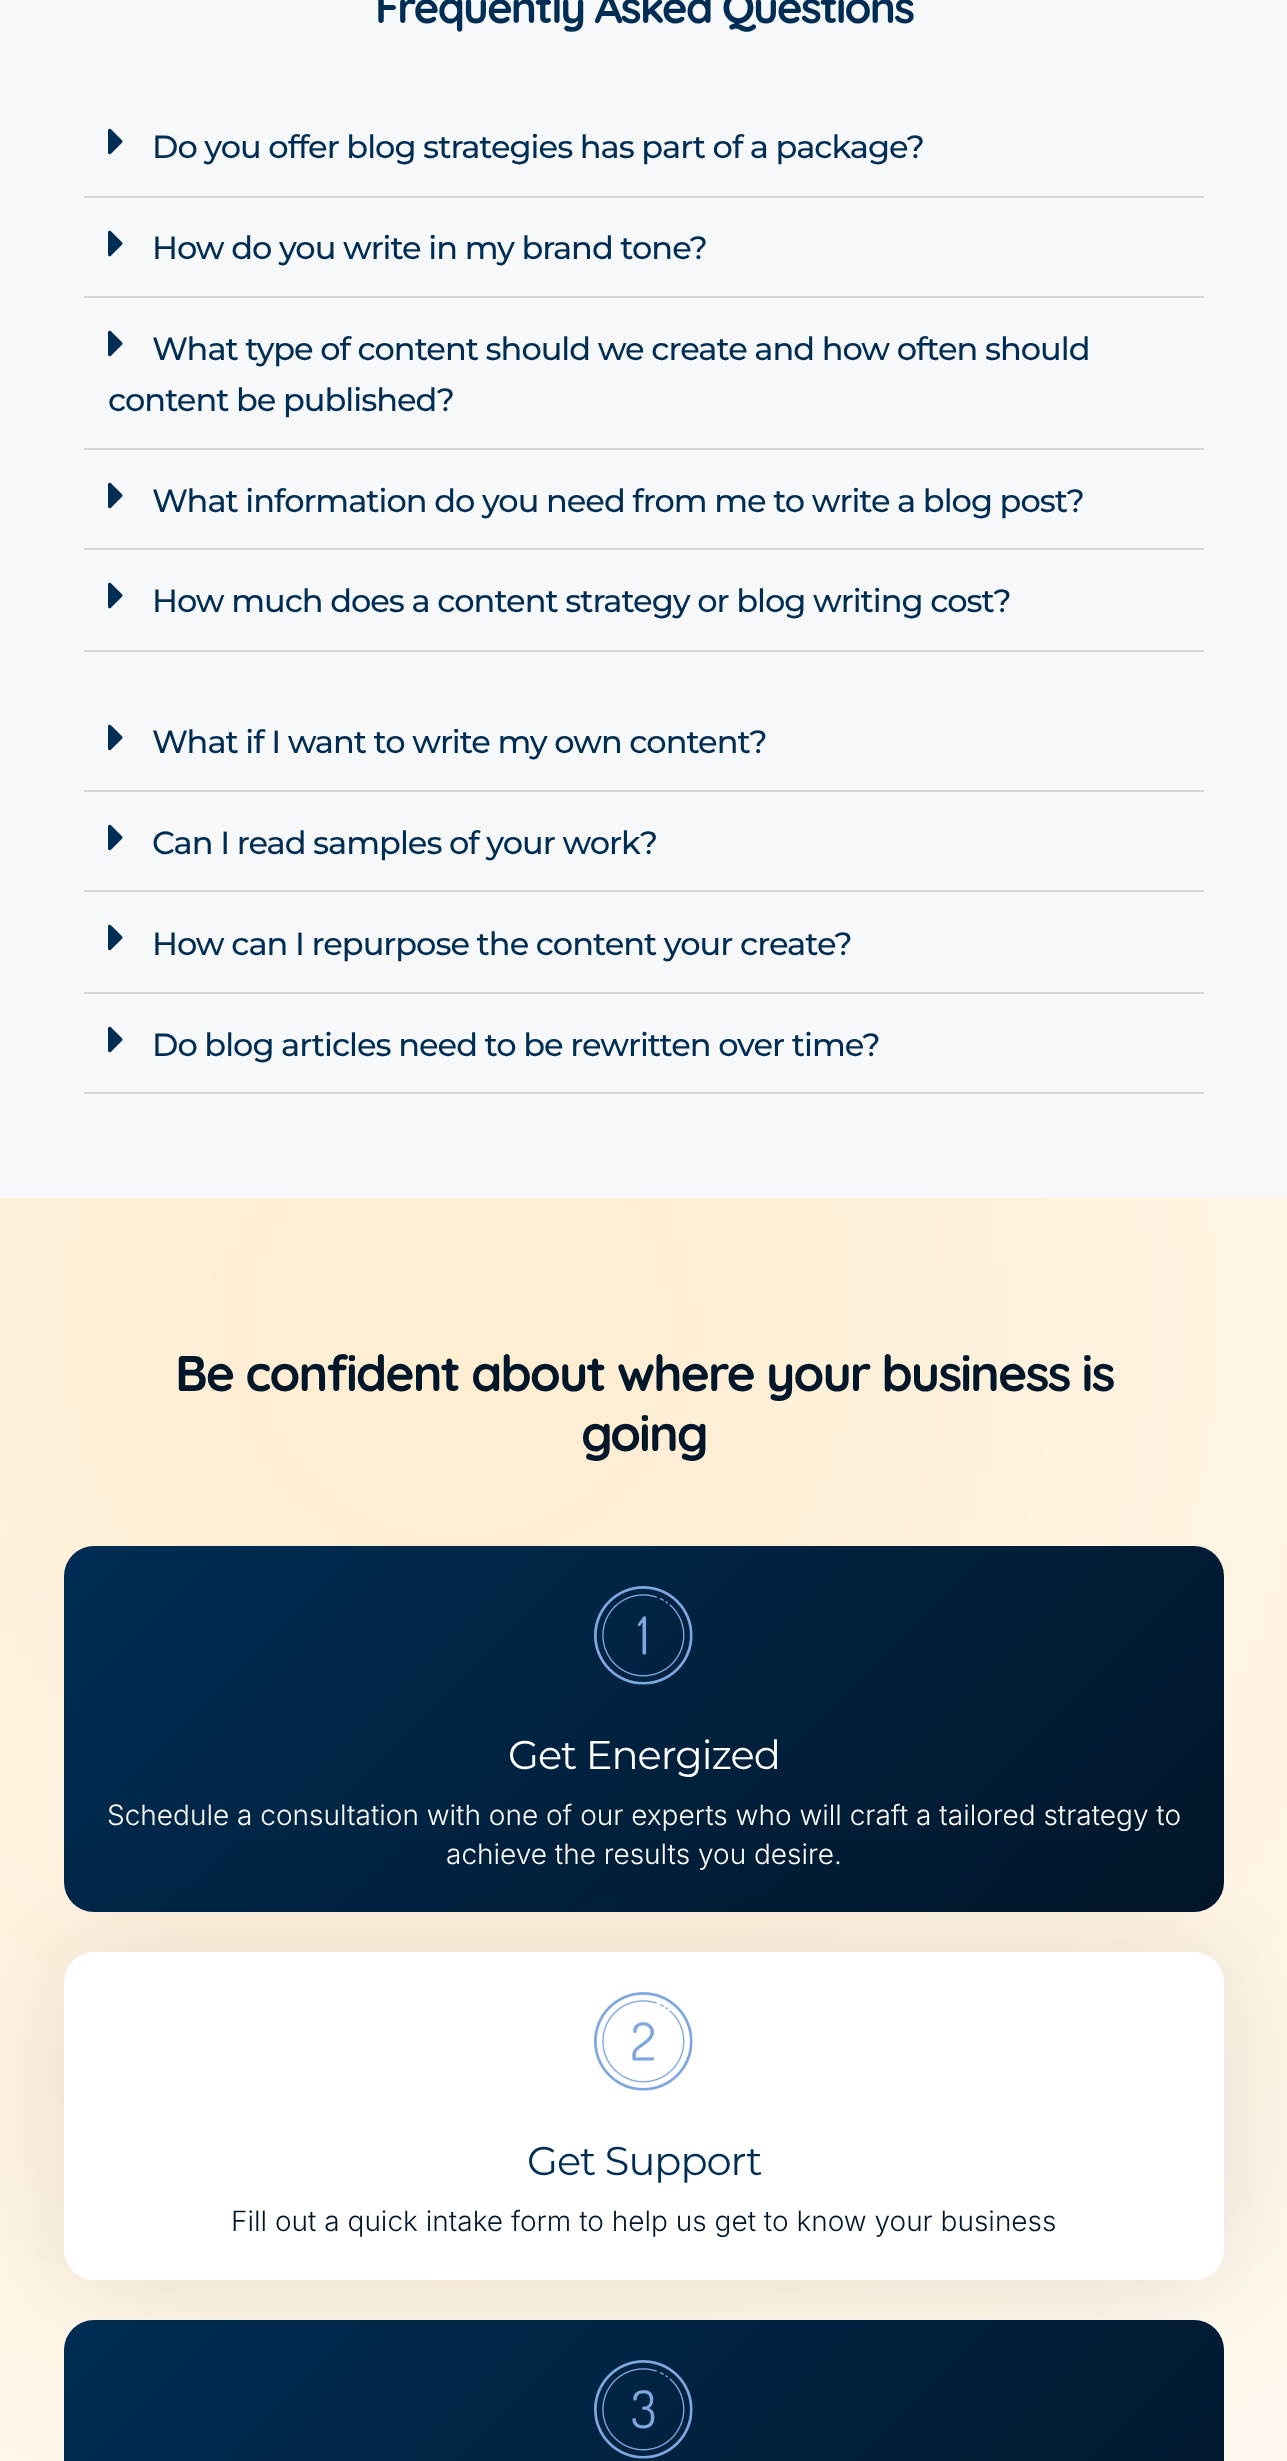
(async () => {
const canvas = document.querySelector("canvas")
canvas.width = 1287
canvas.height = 2461
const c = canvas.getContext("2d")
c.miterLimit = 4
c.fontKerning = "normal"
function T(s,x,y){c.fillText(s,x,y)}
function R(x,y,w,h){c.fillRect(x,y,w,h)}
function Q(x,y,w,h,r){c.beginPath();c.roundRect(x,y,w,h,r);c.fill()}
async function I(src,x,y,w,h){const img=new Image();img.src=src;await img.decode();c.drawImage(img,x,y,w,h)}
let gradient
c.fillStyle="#f7f8f9"
R(0,0,1287,2461)
c.letterSpacing="-2px"
c.font="bold 44px Quicksand"
c.fillStyle="#002d54"
T("Frequently Asked Questions",375,23)
c.fillStyle="#d5d8dc"
R(84,196,1120,2)
await I("1.png",108,128,15,27)
c.letterSpacing="-1px"
c.font="500 32px Montserrat"
c.fillStyle="#002d54"
T("Do you offer blog strategies has part of a package?",152,158)
c.fillStyle="#d5d8dc"
R(84,296,1120,2)
await I("1.png",108,230,15,27)
c.fillStyle="#002d54"
T("How do you write in my brand tone?",152,259)
c.fillStyle="#d5d8dc"
R(84,448,1120,2)
await I("1.png",108,330,15,27)
c.fillStyle="#002d54"
T("What type of content should we create and how often should",152,360)
T("content be published?",108,411)
c.fillStyle="#d5d8dc"
R(84,548,1120,2)
await I("1.png",108,482,15,27)
c.fillStyle="#002d54"
T("What information do you need from me to write a blog post?",152,512)
c.fillStyle="#d5d8dc"
R(84,650,1120,2)
await I("1.png",108,582,15,27)
c.fillStyle="#002d54"
T("How much does a content strategy or blog writing cost?",152,612)
c.fillStyle="#d5d8dc"
R(84,790,1120,2)
await I("1.png",108,724,15,27)
c.fillStyle="#002d54"
T("What if I want to write my own content?",152,753)
c.fillStyle="#d5d8dc"
R(84,890,1120,2)
await I("1.png",108,824,15,27)
c.fillStyle="#002d54"
T("Can I read samples of your work?",152,854)
c.fillStyle="#d5d8dc"
R(84,992,1120,2)
await I("1.png",108,924,15,27)
c.fillStyle="#002d54"
T("How can I repurpose the content your create?",152,955)
c.fillStyle="#d5d8dc"
R(84,1092,1120,2)
await I("1.png",108,1026,15,27)
c.fillStyle="#002d54"
T("Do blog articles need to be rewritten over time?",152,1056)
await I("2.png",0,1198,1287,1263)
c.letterSpacing="-2px"
c.font="bold 50px Quicksand"
c.fillStyle="#011629"
T("Be confident about where your business is",175,1391)
T("going",581,1451)
gradient = c.createLinearGradient(262,1348,1026,2111)
gradient.addColorStop(0,"#002d54")
gradient.addColorStop(1,"#011629")
c.fillStyle = gradient
Q(64,1546,1160,366,30)
await I("3.png",594,1586,99,99)
c.letterSpacing="-1px"
c.font="40px Montserrat"
c.fillStyle="#fff"
T("Get Energized",508,1769)
c.letterSpacing="0px"
c.font="300 28px Inter"
T("Schedule a consultation with one of our experts who will craft a tailored strategy to",107,1825)
T("achieve the results you desire.",446,1864)
c.fillStyle="#0000001a"
c.filter="blur(60px)"
c.beginPath()
c.roundRect(64,1952,1160,328,30)
c.fill()
c.filter="none"
c.fillStyle="#fff"
Q(64,1952,1160,328,30)
await I("4.png",594,1992,99,99)
c.letterSpacing="-1px"
c.font="40px Montserrat"
c.fillStyle="#002d54"
T("Get Support",527,2175)
c.letterSpacing="0px"
c.font="300 28px Inter"
c.fillStyle="#011629"
T("Fill out a quick intake form to help us get to know your business",231,2231)
gradient = c.createLinearGradient(262,2122,1026,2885)
gradient.addColorStop(0,"#002d54")
gradient.addColorStop(1,"#011629")
c.fillStyle = gradient
Q(64,2320,1160,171,30)
await I("5.png",594,2360,99,99)
})()
